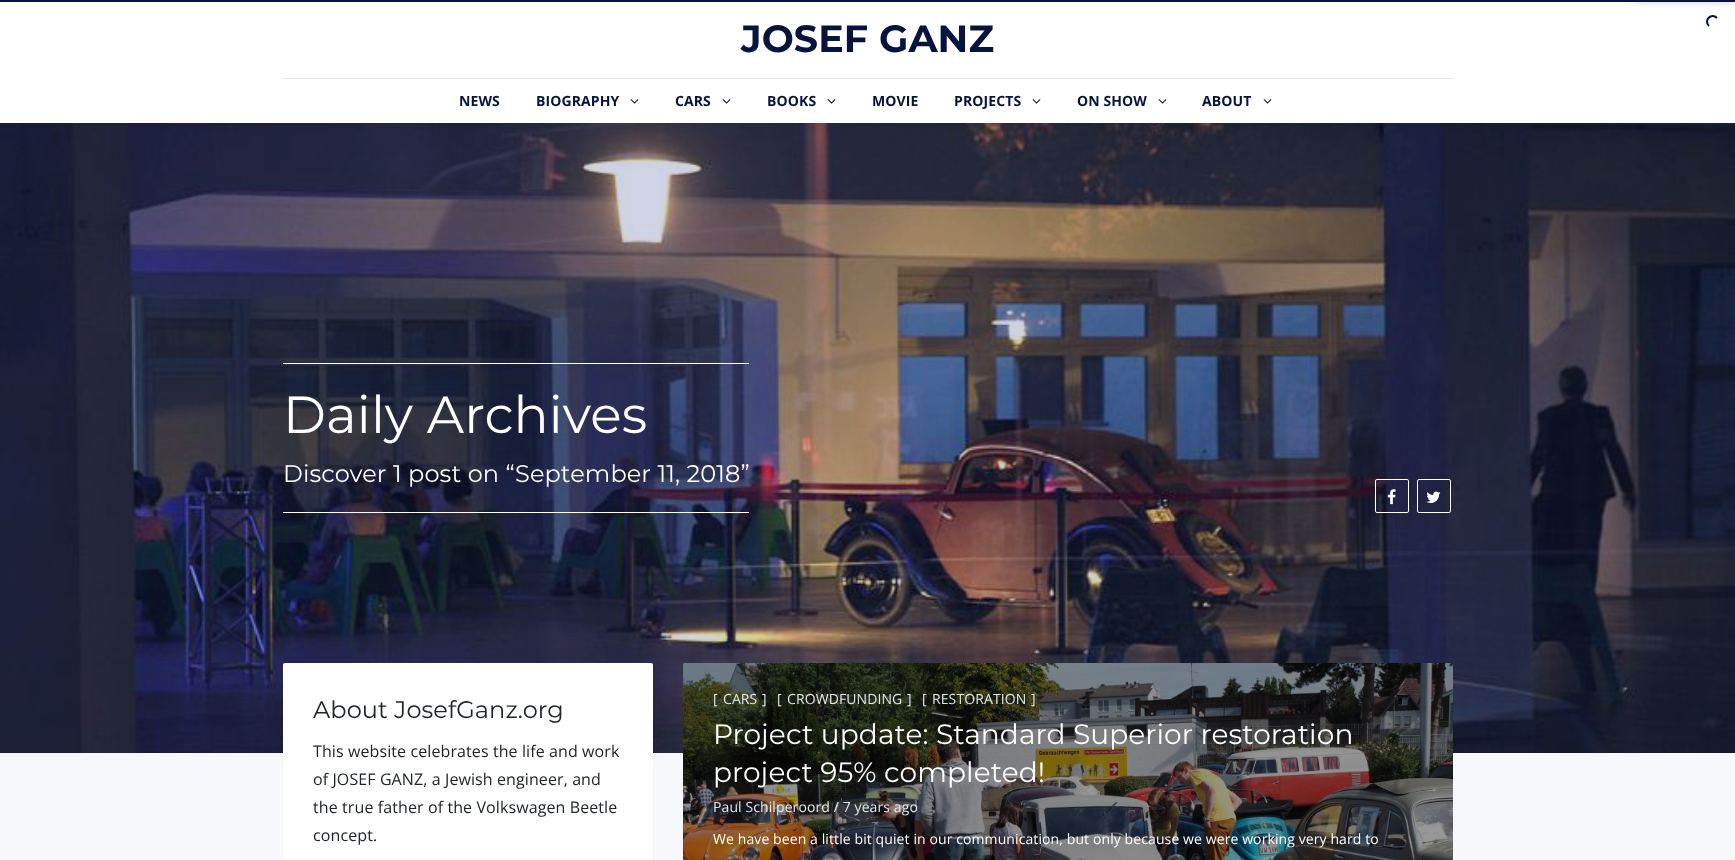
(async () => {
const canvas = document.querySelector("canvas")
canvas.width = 1735
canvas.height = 860
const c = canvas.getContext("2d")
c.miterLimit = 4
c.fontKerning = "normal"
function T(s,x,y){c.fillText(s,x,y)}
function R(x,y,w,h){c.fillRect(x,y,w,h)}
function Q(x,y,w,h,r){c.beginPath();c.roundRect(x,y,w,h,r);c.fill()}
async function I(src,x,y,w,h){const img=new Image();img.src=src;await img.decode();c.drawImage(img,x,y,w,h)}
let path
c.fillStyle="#f7f8fb"
R(0,0,1735,860)
c.fillStyle="#06133d"
R(0,0,1735,2)
c.fillStyle="#fff"
R(0,2,1735,121)
c.fillStyle="#06133d"
c.filter="blur(5px)"
c.beginPath()
c.rect(1635,-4,100,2)
c.fill()
c.filter="none"
path = new Path2D("M1709 26c-6-5.5 2.5-14 8-8")
c.strokeStyle="#06133d"
c.lineWidth=2
c.stroke(path)
c.letterSpacing="0.1px"
c.font="bold 38px Montserrat"
T("JOSEF GANZ",741,52)
c.fillStyle="#e2e7ea"
R(283,78,1170,1)
c.font="bold 14px Open Sans"
c.fillStyle="#06133d"
T("NEWS",459,106)
T("BIOGRAPHY",536,106)
await I("1.png",630,99,9,5)
T("CARS",675,106)
await I("1.png",722,99,9,5)
T("BOOKS",767,106)
await I("1.png",827,99,9,5)
T("MOVIE",872,106)
T("PROJECTS",954,106)
await I("1.png",1032,99,9,5)
T("ON SHOW",1077,106)
await I("1.png",1158,99,9,5)
T("ABOUT",1202,106)
await I("1.png",1263,99,9,5)
await I("2.png",0,123,1735,630)
c.fillStyle="#fff"
R(283,363,466,1)
R(283,512,466,1)
c.font="52px Montserrat"
T("Daily Archives",283,433)
c.font="24px Montserrat"
T("Discover 1 post on “September 11, 2018”",283,482)
c.beginPath()
c.roundRect(1375.5,479.5,33,33,1.5)
c.strokeStyle="#fff"
c.lineWidth=1
c.stroke()
await I("3.png",1387,489,9,16)
c.beginPath()
c.roundRect(1417.5,479.5,33,33,1.5)
c.stroke()
await I("4.png",1426,491,15,12)
Q(283,663,370,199,2)
c.fillStyle="#20252b"
T("About JosefGanz.org",313,718)
c.font="16px Open Sans"
T("This website celebrates the life and work",313,757)
T("of JOSEF GANZ, a Jewish engineer, and",313,785)
T("the true father of the Volkswagen Beetle",313,813)
T("concept.",313,841)
await I("5.png",683,663,770,197)
c.fillStyle="#00000066"
Q(683,663,770,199,2)
c.font="14px Open Sans"
c.fillStyle="#e2e7ea"
T("[",713,704)
T("CARS",723,704)
T("]",762,704)
T("[",777,704)
T("CROWDFUNDING",787,704)
T("]",907,704)
T("[",922,704)
T("RESTORATION",932,704)
T("]",1031,704)
c.font="28px Montserrat"
c.fillStyle="#fff"
T("Project update: Standard Superior restoration",713,744)
T("project 95% completed!",713,782)
c.font="14px Open Sans"
c.fillStyle="#e2e7ea"
T("Paul Schilperoord / 7 years ago",713,812)
c.fillStyle="#fff"
T("We have been a little bit quiet in our communication, but only because we were working very hard to",713,844)
})()
